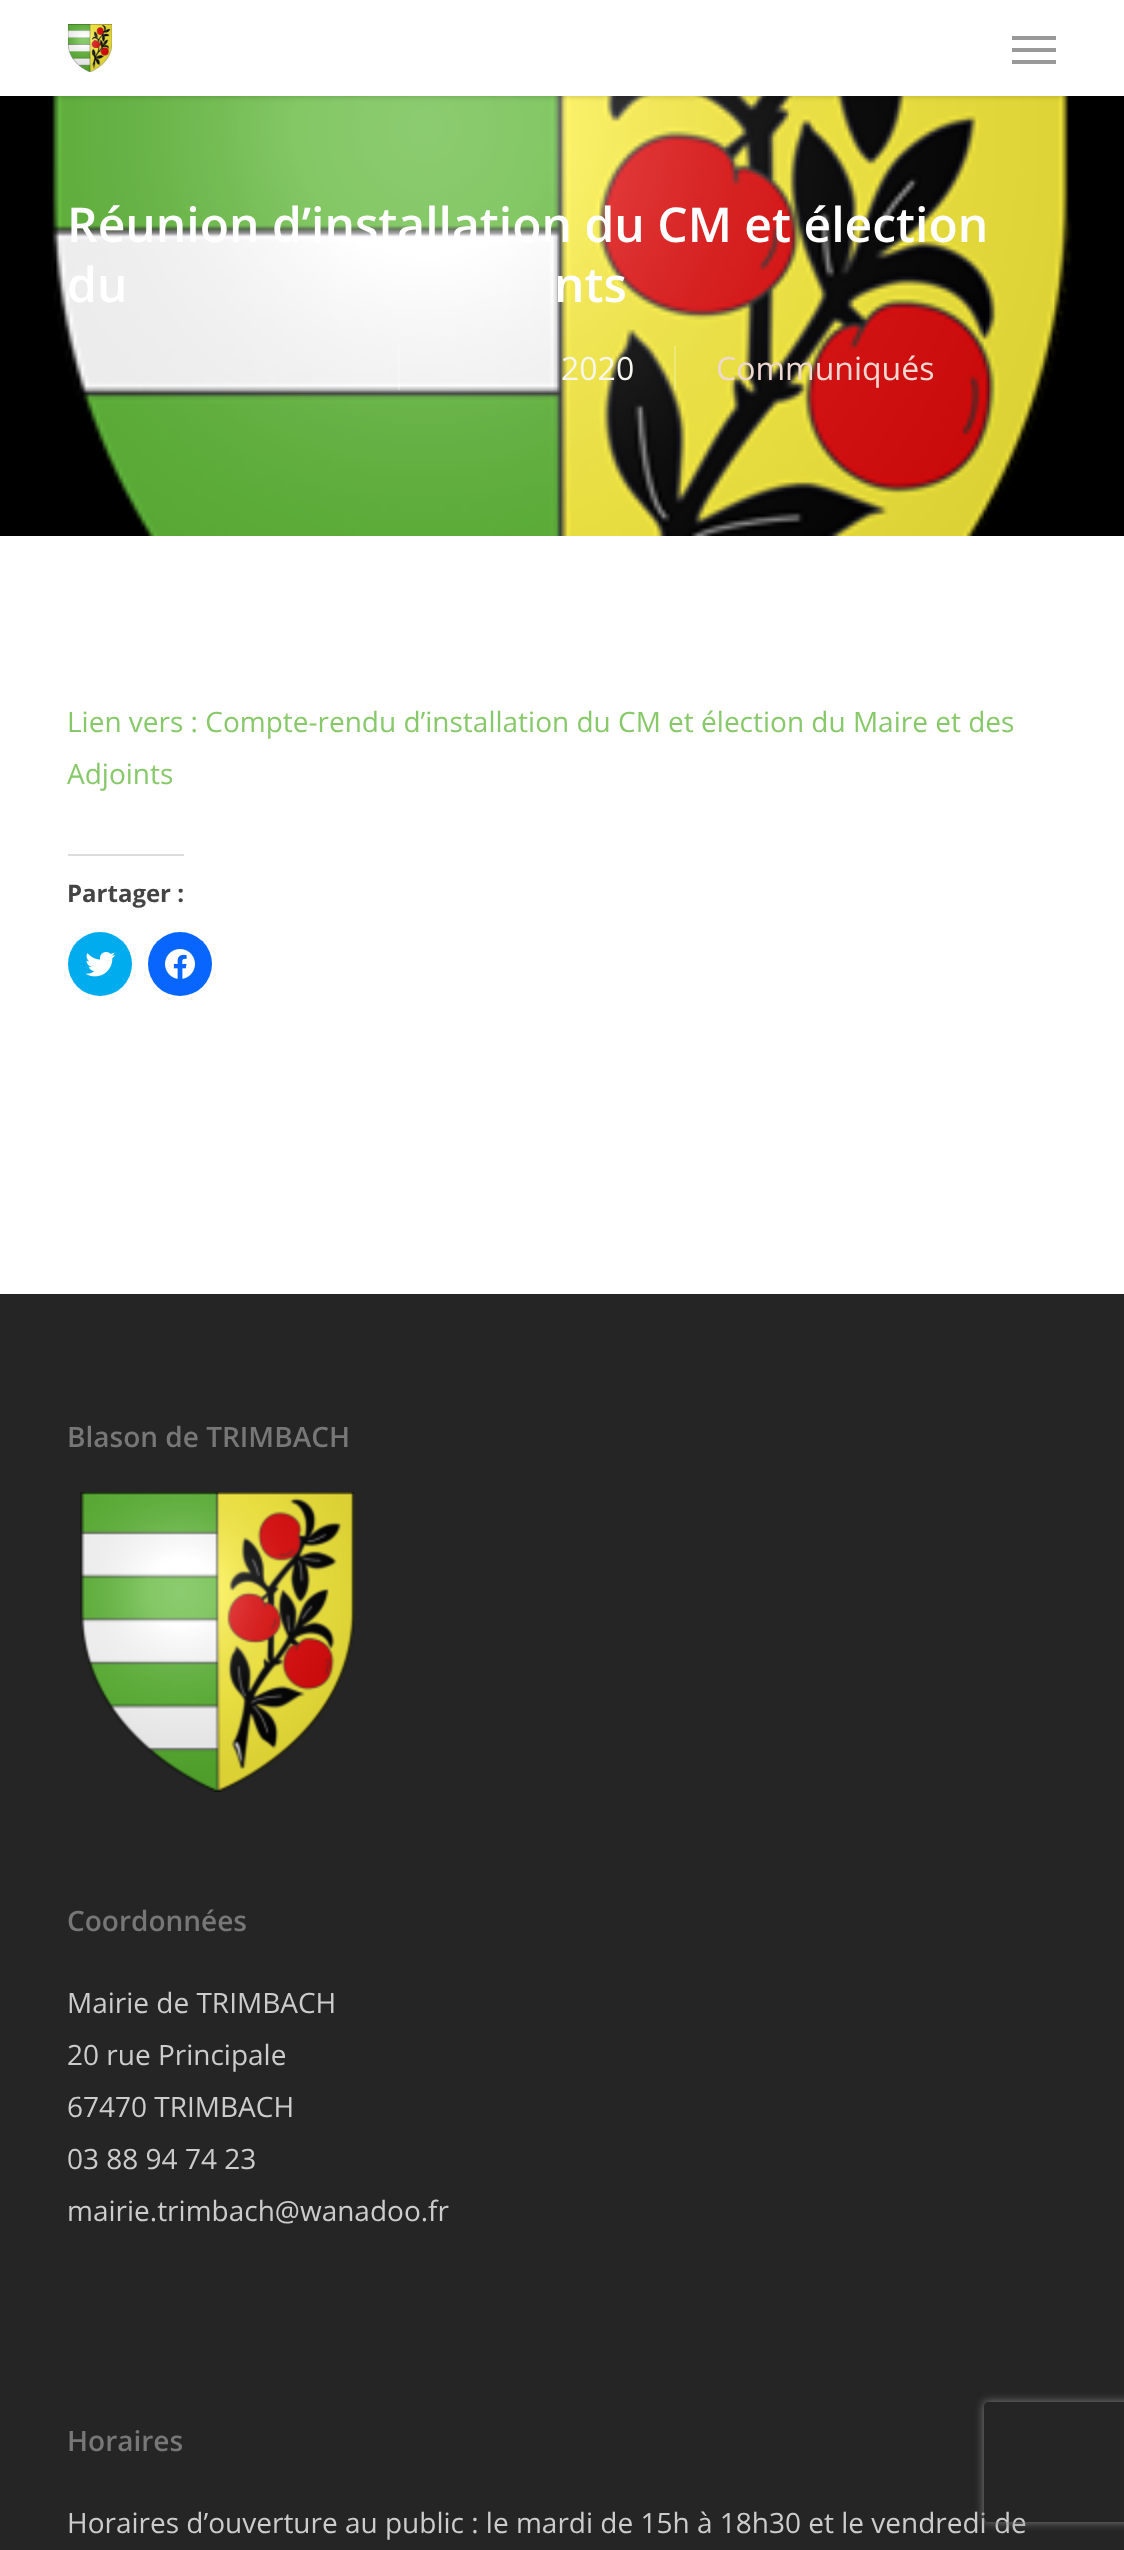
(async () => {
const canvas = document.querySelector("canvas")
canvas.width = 1124
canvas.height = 2550
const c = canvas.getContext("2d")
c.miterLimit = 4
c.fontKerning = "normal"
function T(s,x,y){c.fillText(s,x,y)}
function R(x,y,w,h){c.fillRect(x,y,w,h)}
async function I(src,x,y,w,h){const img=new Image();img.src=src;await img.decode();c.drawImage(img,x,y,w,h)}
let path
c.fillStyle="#fff"
R(0,0,1124,2550)
c.fillStyle="#000"
R(0,96,1124,440)
await I("2.png",51,96,1021,440)
c.fillStyle="#00000038"
c.filter="blur(3px)"
c.beginPath()
c.rect(0,0,1124,96)
c.fill()
c.filter="none"
c.fillStyle="#fff"
R(0,0,1124,96)
await I("1.png",68,24,44,48)
c.fillStyle="#999"
R(1012,36,44,4)
R(1012,60,44,4)
R(1012,48,44,4)
c.font="600 48px Open Sans"
c.fillStyle="#fff"
T("Réunion d’installation du CM et élection",67,242)
T("du",67,302)
T("nts",554,302)
c.font="32px Open Sans"
c.fillStyle="#f7f6ed"
T("2020",561,380)
c.fillStyle="#ffffff40"
R(398,346,2,44)
c.fillStyle="#efd8d2"
T("Communiqués",716,380)
c.fillStyle="#ffffff40"
R(674,346,2,44)
c.font="28px Open Sans"
c.fillStyle="#87c969"
T("Lien vers : Compte-rendu d’installation du CM et élection du Maire et des",67,732)
T("Adjoints",67,784)
c.fillStyle="#dcdcde"
R(68,854,116,2)
c.font="bold 24px Open Sans"
c.fillStyle="#444"
T("Partager :",67,902)
c.fillStyle="#00acee"
c.beginPath()
c.arc(100,964,32,0,7)
c.fill()
await I("3.png",85,952,31,25)
c.fillStyle="#0866ff"
c.beginPath()
c.arc(180,964,32,0,7)
c.fill()
await I("4.png",165,949,30,30)
c.fillStyle="#252525"
R(0,1294,1124,1256)
c.font="600 28px Open Sans"
c.fillStyle="#777"
T("Blason de TRIMBACH",67,1447)
await I("5.png",80,1492,275,300)
T("Coordonnées",67,1931)
c.font="28px Open Sans"
c.fillStyle="#ccc"
T("Mairie de TRIMBACH",67,2013)
T("20 rue Principale",67,2065)
T("67470 TRIMBACH",67,2117)
T("03 88 94 74 23",67,2169)
T("mairie.trimbach@wanadoo.fr",67,2221)
c.font="600 28px Open Sans"
c.fillStyle="#777"
T("Horaires",67,2451)
c.font="28px Open Sans"
c.fillStyle="#ccc"
T("Horaires d’ouverture au public : le mardi de 15h à 18h30 et le vendredi de",67,2533)
c.save()
path = new Path2D("M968 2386h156v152h-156zm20 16h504c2 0 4 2 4 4v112c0 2-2 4-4 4h-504c-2 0-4-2-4-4v-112c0-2 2-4 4-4z")
c.clip(path,"evenodd")
c.fillStyle="#808080"
c.filter="blur(5px)"
c.beginPath()
c.roundRect(984,2402,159,120,4)
c.fill()
c.filter="none"
c.restore()
})()
